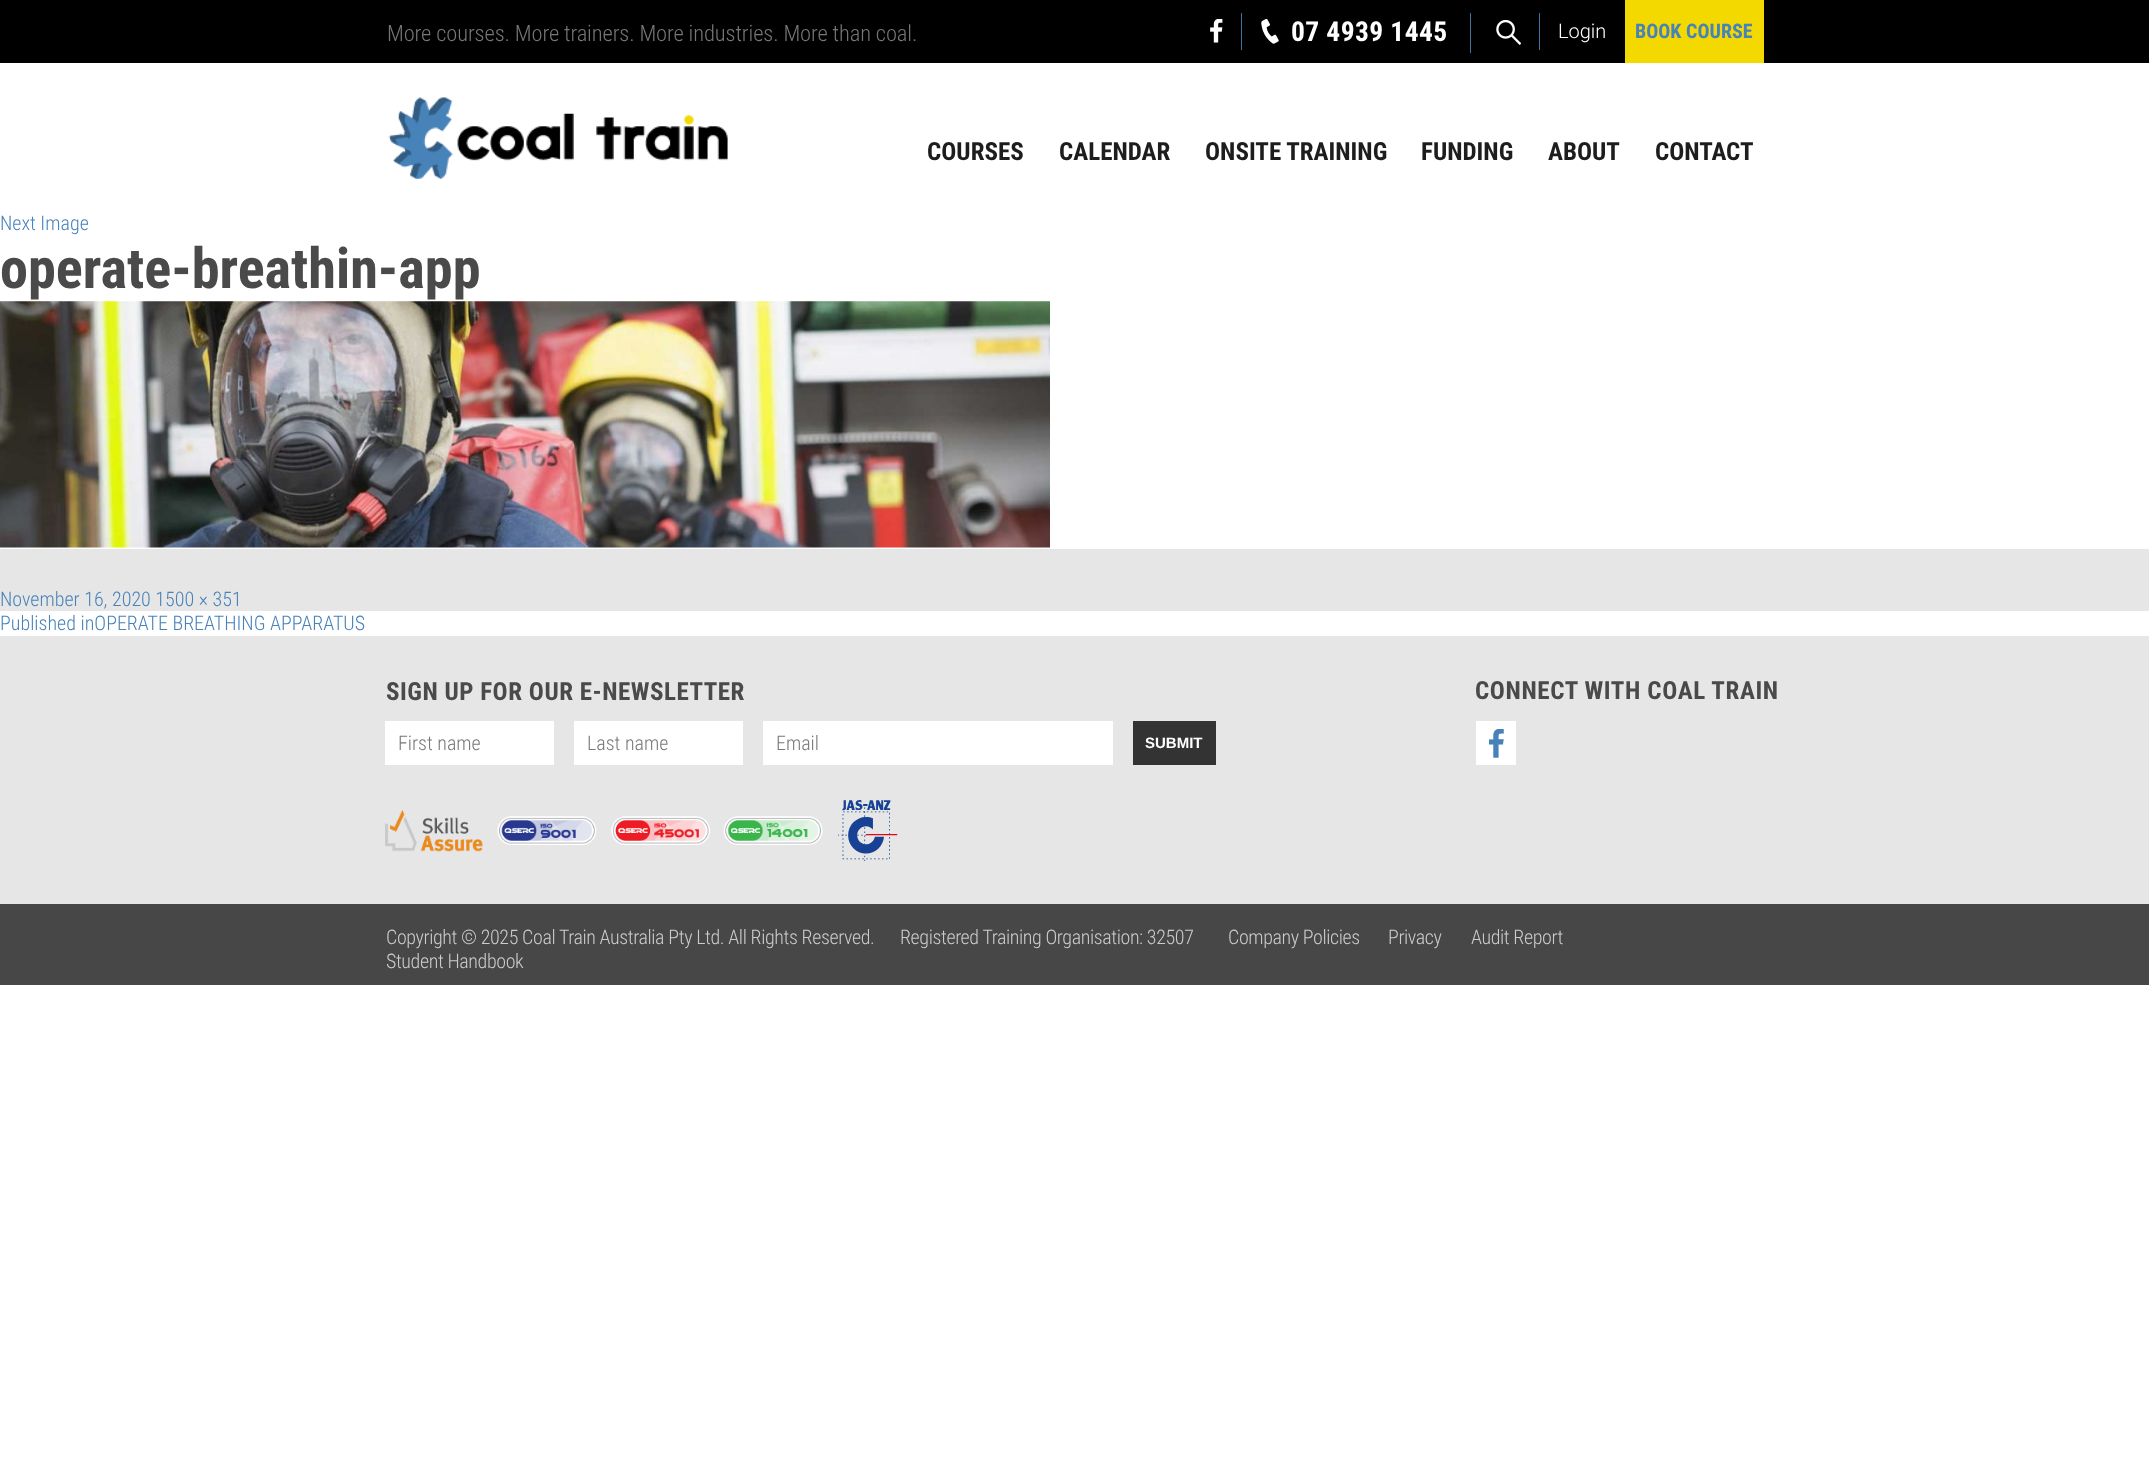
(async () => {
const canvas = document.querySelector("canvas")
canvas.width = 2149
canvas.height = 1457
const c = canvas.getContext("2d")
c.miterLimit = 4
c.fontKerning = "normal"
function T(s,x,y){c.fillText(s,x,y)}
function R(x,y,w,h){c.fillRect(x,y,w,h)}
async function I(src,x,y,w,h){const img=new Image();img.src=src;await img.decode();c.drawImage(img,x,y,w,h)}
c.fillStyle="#fff"
R(0,0,2149,1457)
c.fillStyle="#000"
R(0,0,2149,63)
c.letterSpacing="-0.12px"
c.font="300 22.5px Roboto Condensed"
c.fillStyle="#777"
T("More courses. More trainers. More industries. More than coal.",387,41)
c.fillStyle="#3e72a2"
R(1241,13,1,37)
await I("1.png",1210,19,13,24)
R(1470,13,1,40)
await I("2.png",1261,19,18,25)
c.letterSpacing="0.4px"
c.font="bold 27.5px Roboto Condensed"
c.fillStyle="#fff"
T("07 4939 1445",1291,41)
c.fillStyle="#3e72a2"
R(1539,13,1,37)
await I("3.png",1496,20,25,25)
c.letterSpacing="0px"
c.font="300 20px Roboto"
c.fillStyle="#fff"
T("Login",1558,38)
c.fillStyle="#f3d900"
R(1625,0,139,63)
c.font="bold 20px Roboto Condensed"
c.fillStyle="#4782b9"
T("BOOK COURSE",1635,38)
await I("4.png",388,97,340,82)
c.font="bold 25px Roboto Condensed"
c.fillStyle="#1d1d1d"
T("COURSES",927,160)
T("CALENDAR",1059,160)
T("ONSITE TRAINING",1205,160)
T("FUNDING",1421,160)
T("ABOUT",1548,160)
T("CONTACT",1655,160)
c.font="300 20px Roboto Condensed"
c.fillStyle="#4782b9"
T("Next Image",0,230)
c.font="bold 56.25px Roboto Condensed"
c.fillStyle="#4a4a4a"
T("operate-breathin-app",0,288)
await I("5.png",0,301,1050,247)
c.fillStyle="#e6e6e6"
R(0,549,2149,62)
c.font="300 20px Roboto Condensed"
c.fillStyle="#4782b9"
T("November 16, 2020 1500 × 351",0,606)
T("Published inOPERATE BREATHING APPARATUS",0,630)
c.fillStyle="#e6e6e6"
R(0,636,2149,268)
c.letterSpacing="0.5px"
c.font="bold 25px Roboto Condensed"
c.fillStyle="#4a4a4a"
T("SIGN UP FOR OUR E-NEWSLETTER",386,700)
c.fillStyle="#fff"
R(385,721,169,44)
c.letterSpacing="0px"
c.font="300 20px Roboto Condensed"
c.fillStyle="#777"
T("First name",398,750)
c.fillStyle="#fff"
R(574,721,169,44)
c.fillStyle="#777"
T("Last name",587,750)
c.fillStyle="#fff"
R(763,721,350,44)
c.fillStyle="#777"
T("Email",776,750)
c.fillStyle="#333"
R(1133,721,83,44)
c.font="bold 15px Liberation Sans"
c.fillStyle="#fff"
T("SUBMIT",1145,748)
c.letterSpacing="0.6px"
c.font="bold 25px Roboto Condensed"
c.fillStyle="#4a4a4a"
T("CONNECT WITH COAL TRAIN",1475,699)
c.fillStyle="#fff"
R(1476,721,40,44)
await I("6.png",1489,729,15,29)
await I("7.png",385,810,98,42)
await I("8.png",497,816,100,29)
await I("9.png",611,816,99,29)
await I("10.png",723,816,100,29)
await I("11.png",838,800,60,61)
c.fillStyle="#474747"
R(0,904,2149,81)
c.letterSpacing="-0.4px"
c.font="300 20px Roboto Condensed"
c.fillStyle="#ccc"
T("Copyright © 2025 Coal Train Australia Pty Ltd. All Rights Reserved.",386,944)
T("Registered Training Organisation: 32507",900,944)
T("Company Policies",1228,944)
T("Privacy",1388,944)
T("Audit Report",1471,944)
T("Student Handbook",386,968)
})()
